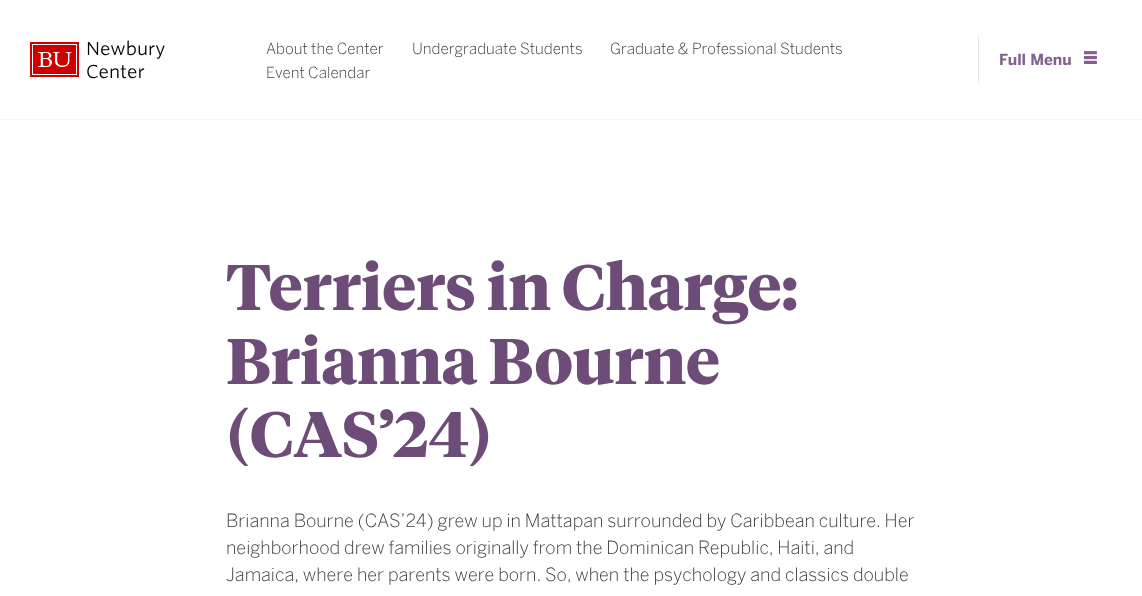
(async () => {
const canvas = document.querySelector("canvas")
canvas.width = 1142
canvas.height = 596
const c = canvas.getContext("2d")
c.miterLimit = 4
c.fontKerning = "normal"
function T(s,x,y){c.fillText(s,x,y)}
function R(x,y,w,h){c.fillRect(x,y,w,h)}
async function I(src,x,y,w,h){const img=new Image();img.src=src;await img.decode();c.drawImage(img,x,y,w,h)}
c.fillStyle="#fff"
R(0,0,1142,596)
c.fillStyle="#f5f5f5"
R(0,119,1142,1)
await I("1.png",30,42,49,35)
c.font="18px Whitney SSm"
c.fillStyle="#000"
T("Newbury",86,55)
T("Center",86,78)
c.font="300 15.25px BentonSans"
c.fillStyle="#3a3a3a"
T("About the Center",266,54)
T("Undergraduate Students",412,54)
T("Graduate & Professional Students",610,54)
T("Event Calendar",266,78)
c.fillStyle="#eae5eb"
R(978,36,1,47)
c.font="bold 15.25px BentonSans"
c.fillStyle="#83638e"
T("Full Menu",999,65)
await I("2.png",1084,51,13,13)
c.font="bold 64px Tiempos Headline"
c.fillStyle="#6d4d77"
T("Terriers in Charge:",226,310)
T("Brianna Bourne",226,384)
T("(CAS’24)",226,457)
c.font="300 18.1px BentonSans"
c.fillStyle="#3a3a3a"
T("Brianna Bourne (CAS’24) grew up in Mattapan surrounded by Caribbean culture. Her",226,527)
T("neighborhood drew families originally from the Dominican Republic, Haiti, and",226,554)
T("Jamaica, where her parents were born. So, when the psychology and classics double",226,581)
})()
